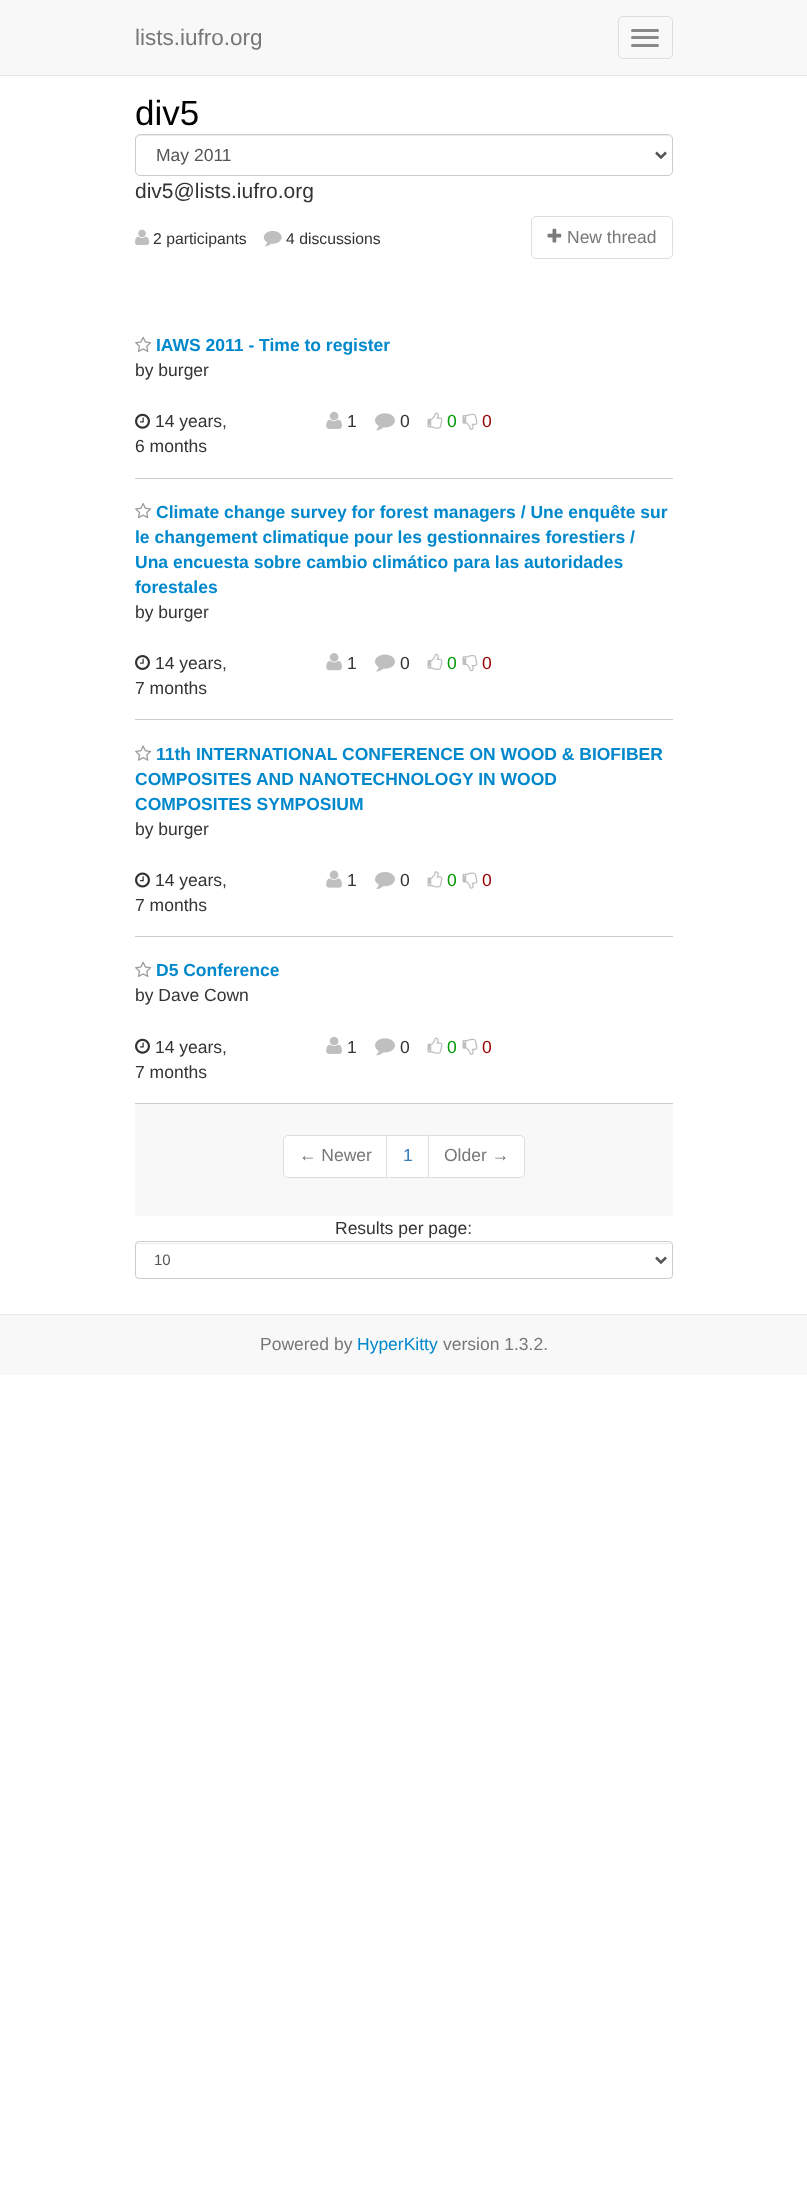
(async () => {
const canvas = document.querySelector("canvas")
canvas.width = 807
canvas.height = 2211
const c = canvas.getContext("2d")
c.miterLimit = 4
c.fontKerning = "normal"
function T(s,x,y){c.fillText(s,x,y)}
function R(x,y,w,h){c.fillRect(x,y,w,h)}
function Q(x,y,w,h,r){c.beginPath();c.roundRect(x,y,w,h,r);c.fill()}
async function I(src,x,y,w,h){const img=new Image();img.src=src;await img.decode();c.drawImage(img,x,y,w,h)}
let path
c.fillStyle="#fff"
R(0,0,807,2211)
c.fillStyle="#f8f8f8"
R(0,0,807,75)
c.fillStyle="#e7e7e7"
R(0,75,807,1)
c.font="22.5px Liberation Sans"
c.fillStyle="#777"
T("lists.iufro.org",135,45)
c.beginPath()
c.roundRect(618.5,16.5,54,42,4.5)
c.strokeStyle="#ddd"
c.stroke()
c.fillStyle="#888"
Q(631,29,28,3,1.5)
Q(631,36,28,3,1.5)
Q(631,44,28,3,1.5)
c.font="35px Liberation Sans"
c.fillStyle="#000"
T("div5",135,125)
c.fillStyle="#ececec"
path = new Path2D("M140 136h528c2 0 3 2 3 4v-1c0-2-2-4-4-4h-527c-2 0-4 2-4 4v1c0-2 2-4 4-4z")
c.fill(path)
c.beginPath()
c.roundRect(135.5,134.5,537,41,4.5)
c.strokeStyle="#ccc"
c.stroke()
path = new Path2D("M656 152.5l5 5l5-5")
c.strokeStyle="#555"
c.lineWidth=2.5
c.stroke(path)
c.font="17.5px Liberation Sans"
c.fillStyle="#555"
T("May 2011",156,161)
c.font="21px Liberation Sans"
c.fillStyle="#333"
T("div5@lists.iufro.org",135,198)
await I("1.png",135,229,15,16)
c.font="15.75px Liberation Sans"
T("2 participants",153,244)
await I("2.png",263,231,19,16)
T("4 discussions",286,244)
c.beginPath()
c.roundRect(531.5,216.5,141,42,4.5)
c.strokeStyle="#dedede"
c.lineWidth=1
c.stroke()
await I("3.png",547,228,15,15)
c.font="17.5px Liberation Sans"
c.fillStyle="#777"
T("New thread",567,243)
c.fillStyle="#ccc"
R(135,478,538,1)
await I("4.png",135,336,17,16)
c.font="bold 17.5px Liberation Sans"
c.fillStyle="#08c"
T("IAWS 2011 - Time to register",156,351)
c.font="17.5px Liberation Sans"
c.fillStyle="#333"
T("by burger",135,376)
await I("5.png",135,413,15,16)
T("14 years,",155,427)
T("6 months",135,452)
await I("6.png",326,411,16,18)
T("1",347,427)
await I("7.png",375,413,20,18)
T("0",400,427)
await I("8.png",427,412,16,17)
c.fillStyle="#090"
T("0",447,427)
await I("9.png",462,413,16,17)
c.fillStyle="#900"
T("0",482,427)
c.fillStyle="#ccc"
R(135,719,538,1)
await I("10.png",135,502,17,17)
c.font="bold 17.5px Liberation Sans"
c.fillStyle="#08c"
T("Climate change survey for forest managers / Une enquête sur",156,518)
T("le changement climatique pour les gestionnaires forestiers /",135,543)
T("Una encuesta sobre cambio climático para las autoridades",135,568)
T("forestales",135,593)
c.font="17.5px Liberation Sans"
c.fillStyle="#333"
T("by burger",135,618)
await I("11.png",135,655,15,15)
T("14 years,",155,669)
T("7 months",135,694)
await I("12.png",326,653,16,18)
T("1",347,669)
await I("13.png",375,654,20,18)
T("0",400,669)
await I("14.png",427,653,16,17)
c.fillStyle="#090"
T("0",447,669)
await I("15.png",462,655,16,17)
c.fillStyle="#900"
T("0",482,669)
c.fillStyle="#ccc"
R(135,936,538,1)
await I("16.png",135,745,17,16)
c.font="bold 17.5px Liberation Sans"
c.fillStyle="#08c"
T("11th INTERNATIONAL CONFERENCE ON WOOD & BIOFIBER",156,760)
T("COMPOSITES AND NANOTECHNOLOGY IN WOOD",135,785)
T("COMPOSITES SYMPOSIUM",135,810)
c.font="17.5px Liberation Sans"
c.fillStyle="#333"
T("by burger",135,835)
await I("17.png",135,872,15,16)
T("14 years,",155,886)
T("7 months",135,911)
await I("18.png",326,870,16,18)
T("1",347,886)
await I("19.png",375,872,20,17)
T("0",400,886)
await I("20.png",427,871,16,17)
c.fillStyle="#090"
T("0",447,886)
await I("21.png",462,872,16,17)
c.fillStyle="#900"
T("0",482,886)
c.fillStyle="#ccc"
R(135,1103,538,1)
await I("4.png",135,961,17,16)
c.font="bold 17.5px Liberation Sans"
c.fillStyle="#08c"
T("D5 Conference",156,976)
c.font="17.5px Liberation Sans"
c.fillStyle="#333"
T("by Dave Cown",135,1001)
await I("5.png",135,1038,15,16)
T("14 years,",155,1053)
T("7 months",135,1078)
await I("6.png",326,1036,16,18)
T("1",347,1053)
await I("7.png",375,1038,20,18)
T("0",400,1053)
await I("8.png",427,1037,16,17)
c.fillStyle="#090"
T("0",447,1053)
await I("9.png",462,1038,16,17)
c.fillStyle="#900"
T("0",482,1053)
c.fillStyle="#f8f8f8"
R(135,1104,538,112)
c.fillStyle="#fff"
c.beginPath()
c.roundRect(283.5,1135.5,104,42,[4.5,0,0,4.5])
c.fill()
c.strokeStyle="#ddd"
c.stroke()
c.fillStyle="#777"
T("← Newer",299,1161)
c.fillStyle="#fff"
c.beginPath()
c.rect(386.5,1135.5,42,42)
c.fill()
c.stroke()
c.fillStyle="#337ab7"
T("1",403,1161)
c.fillStyle="#fff"
c.beginPath()
c.roundRect(428.5,1135.5,96,42,[0,4.5,4.5,0])
c.fill()
c.stroke()
c.fillStyle="#777"
T("Older →",444,1161)
c.fillStyle="#333"
T("Results per page:",335,1234)
c.fillStyle="#ececec"
path = new Path2D("M139 1244h530c1 0 2 1 2 2c0-2-1-3-3-3h-530c-1 0-2 1-2 3c0-1 1-2 3-2z")
c.fill(path)
c.beginPath()
c.roundRect(135.5,1241.5,537,37,3.5)
c.strokeStyle="#ccc"
c.stroke()
path = new Path2D("M656 1257.5l5 5l5-5")
c.strokeStyle="#555"
c.lineWidth=2.5
c.stroke(path)
c.font="15px Liberation Sans"
c.fillStyle="#555"
T("10",154,1265)
c.fillStyle="#f8f8f8"
R(0,1315,807,60)
c.fillStyle="#e7e7e7"
R(0,1314,807,1)
c.font="17.5px Liberation Sans"
c.fillStyle="#777"
T("Powered by",260,1350)
c.fillStyle="#08c"
T("HyperKitty",357,1350)
c.fillStyle="#777"
T("version 1.3.2.",443,1350)
})()
